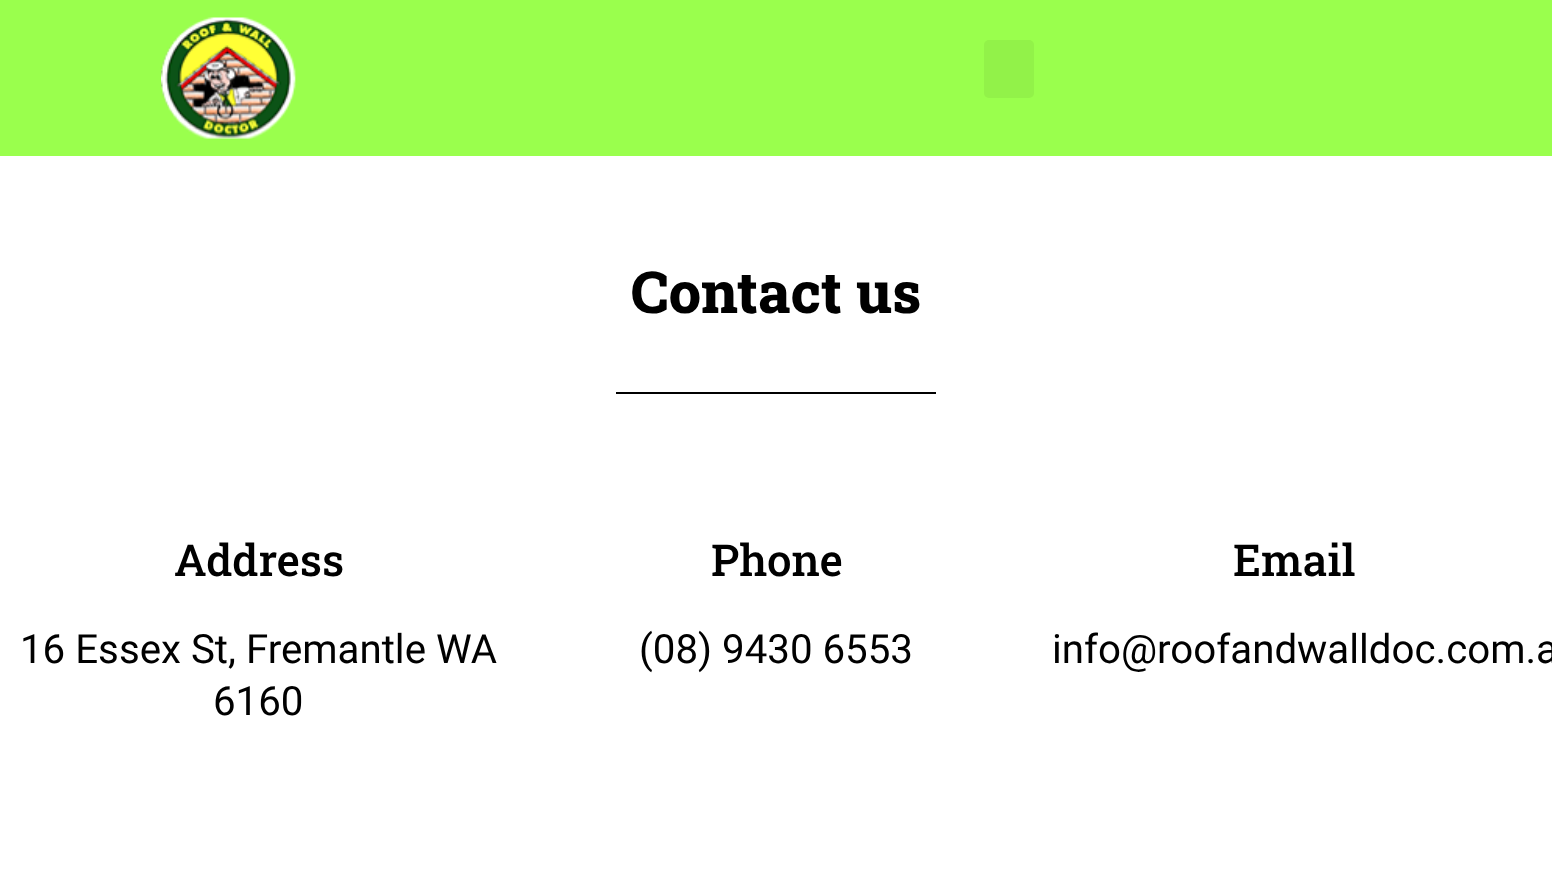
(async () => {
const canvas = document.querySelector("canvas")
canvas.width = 1552
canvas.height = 872
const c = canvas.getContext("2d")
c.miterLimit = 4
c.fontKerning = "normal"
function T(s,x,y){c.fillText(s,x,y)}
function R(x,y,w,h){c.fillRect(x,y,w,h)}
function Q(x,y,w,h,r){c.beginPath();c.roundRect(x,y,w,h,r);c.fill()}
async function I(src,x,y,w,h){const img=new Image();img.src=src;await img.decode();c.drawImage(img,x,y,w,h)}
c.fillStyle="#fff"
R(0,0,1552,872)
c.fillStyle="#9aff4d"
R(0,0,1552,156)
await I("1.png",161,17,135,122)
c.fillStyle="#92f249"
Q(984,40,50,58,5)
c.font="800 57.75px Roboto Slab"
c.fillStyle="#000"
T("Contact us",631,313)
R(616,392,320,2)
c.font="500 44px Roboto Slab"
T("Address",174,576)
c.font="40.25px Roboto"
T("16 Essex St, Fremantle WA",20,663)
T("6160",213,715)
c.font="500 44px Roboto Slab"
T("Phone",711,576)
c.font="40.25px Roboto"
T("(08) 9430 6553",639,663)
c.font="500 44px Roboto Slab"
T("Email",1233,576)
c.font="40.25px Roboto"
T("info@roofandwalldoc.com.a",1052,663)
})()
